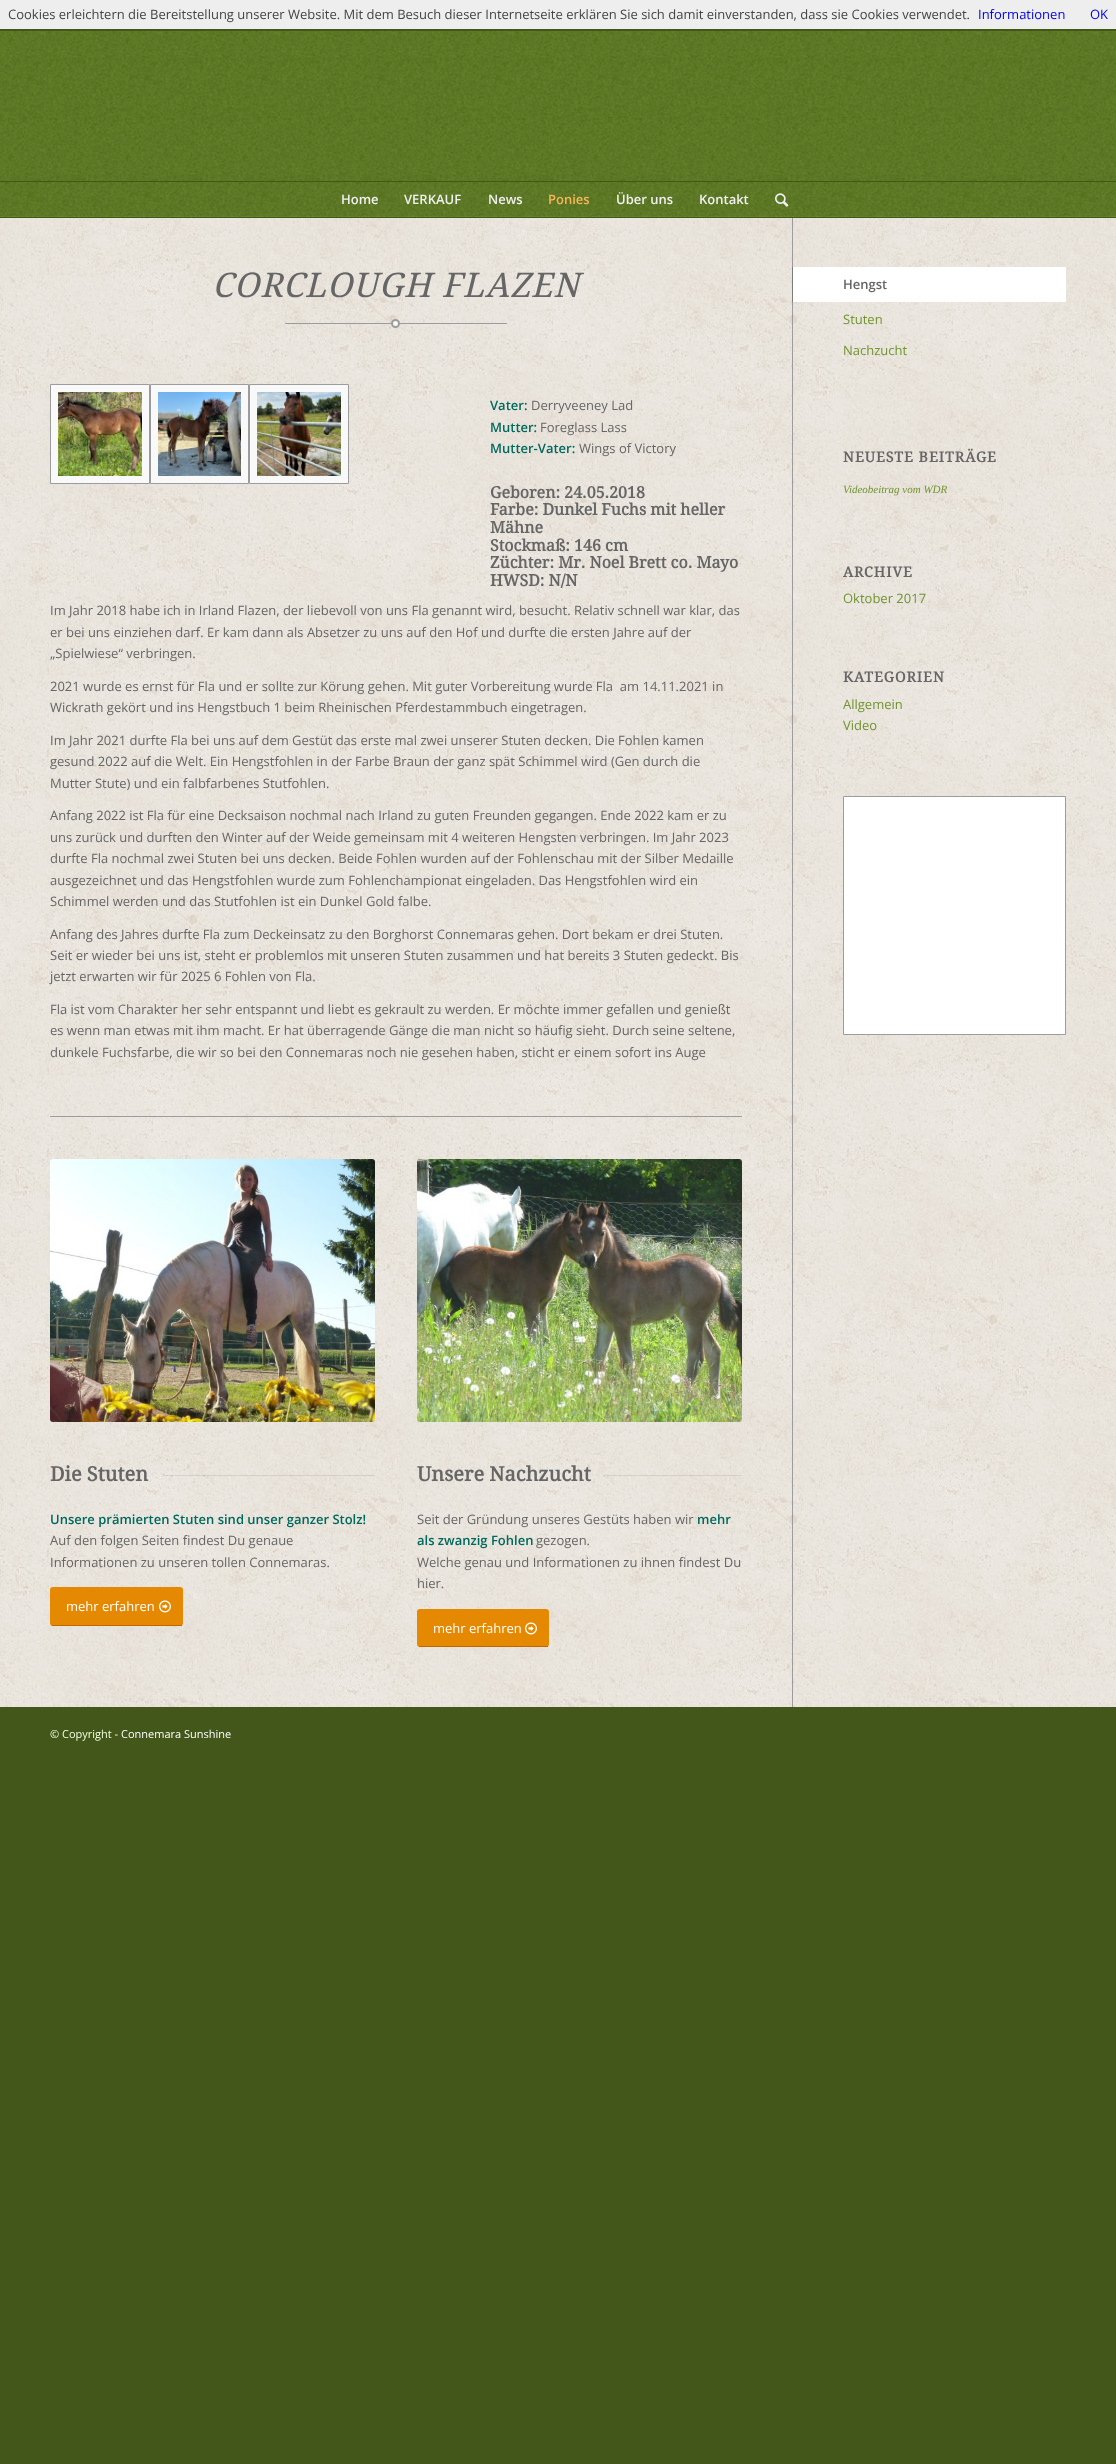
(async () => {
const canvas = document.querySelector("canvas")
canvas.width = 1116
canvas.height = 2464
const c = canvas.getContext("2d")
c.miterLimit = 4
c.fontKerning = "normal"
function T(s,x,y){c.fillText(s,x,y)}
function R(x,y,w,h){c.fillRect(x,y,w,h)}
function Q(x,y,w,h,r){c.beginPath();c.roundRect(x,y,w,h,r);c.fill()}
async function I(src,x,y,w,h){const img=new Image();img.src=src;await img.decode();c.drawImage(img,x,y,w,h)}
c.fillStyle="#425719"
R(0,0,1116,2464)
c.fillStyle="#eee"
R(0,0,1116,29)
c.font="13px Open Sans"
c.fillStyle="#444"
T("Cookies erleichtern die Bereitstellung unserer Website. Mit dem Besuch dieser Internetseite erklären Sie sich damit einverstanden, dass sie Cookies verwendet.",8,19)
c.fillStyle="#00e"
T("Informationen",978,19)
T("OK",1090,19)
c.fillStyle="#425916"
R(0,30,1116,1)
R(1035,29,1,1)
await I("3.png",0,216,1116,1491)
await I("1.png",0,31,1116,186)
c.fillStyle="#9c9c9c"
R(792,217,1,1490)
c.fillStyle="#425916"
R(0,217,1116,1)
R(0,181,1116,1)
c.font="600 13px Open Sans"
c.fillStyle="#f0f0f0"
T("Home",341,204)
T("VERKAUF",404,204)
T("News",488,204)
c.fillStyle="#f7b757"
T("Ponies",548,204)
c.fillStyle="#f0f0f0"
T("Über uns",616,204)
T("Kontakt",699,204)
await I("2.png",775,193,14,14)
c.letterSpacing="1px"
c.font="italic 34px Droid Serif"
c.fillStyle="#666"
T("CORCLOUGH FLAZEN",212,297)
c.fillStyle="#9c9c9c"
R(285,323,222,1)
c.fillStyle="#f9f9f9"
c.beginPath()
c.arc(395.5,323.5,3.5,0,7)
c.fill()
c.strokeStyle="#9c9c9c"
c.lineWidth=2
c.stroke()
c.beginPath()
c.rect(50.5,384.5,99,99)
c.fill()
c.lineWidth=1
c.stroke()
await I("4.png",58,392,84,84)
c.beginPath()
c.rect(150.5,384.5,98,99)
c.fill()
c.stroke()
await I("5.png",158,392,83,84)
c.beginPath()
c.rect(249.5,384.5,99,99)
c.fill()
c.stroke()
await I("6.png",257,392,84,84)
c.letterSpacing="0px"
c.font="600 13px Open Sans"
c.fillStyle="#00695d"
T("Vater:",490,410)
c.font="13px Open Sans"
c.fillStyle="#666"
T("Derryveeney Lad",531,410)
c.font="600 13px Open Sans"
c.fillStyle="#00695d"
T("Mutter:",490,432)
c.font="13px Open Sans"
c.fillStyle="#666"
T("Foreglass Lass",540,432)
c.font="600 13px Open Sans"
c.fillStyle="#00695d"
T("Mutter-Vater:",490,453)
c.font="13px Open Sans"
c.fillStyle="#666"
T("Wings of Victory",579,453)
c.font="bold 16px Droid Serif"
T("Geboren: 24.05.2018",490,498)
T("Farbe: Dunkel Fuchs mit heller",490,515)
T("Mähne",490,533)
T("Stockmaß: 146 cm",490,551)
T("Züchter: Mr. Noel Brett co. Mayo",490,568)
T("HWSD: N/N",490,586)
c.font="13px Open Sans"
T("Im Jahr 2018 habe ich in Irland Flazen, der liebevoll von uns Fla genannt wird, besucht. Relativ schnell war klar, das",50,615)
T("er bei uns einziehen darf. Er kam dann als Absetzer zu uns auf den Hof und durfte die ersten Jahre auf der",50,637)
T("„Spielwiese“ verbringen.",50,658)
T("2021 wurde es ernst für Fla und er sollte zur Körung gehen. Mit guter Vorbereitung wurde Fla  am 14.11.2021 in",50,691)
T("Wickrath gekört und ins Hengstbuch 1 beim Rheinischen Pferdestammbuch eingetragen.",50,712)
T("Im Jahr 2021 durfte Fla bei uns auf dem Gestüt das erste mal zwei unserer Stuten decken. Die Fohlen kamen",50,745)
T("gesund 2022 auf die Welt. Ein Hengstfohlen in der Farbe Braun der ganz spät Schimmel wird (Gen durch die",50,766)
T("Mutter Stute) und ein falbfarbenes Stutfohlen.",50,788)
T("Anfang 2022 ist Fla für eine Decksaison nochmal nach Irland zu guten Freunden gegangen. Ende 2022 kam er zu",50,820)
T("uns zurück und durften den Winter auf der Weide gemeinsam mit 4 weiteren Hengsten verbringen. Im Jahr 2023",50,842)
T("durfte Fla nochmal zwei Stuten bei uns decken. Beide Fohlen wurden auf der Fohlenschau mit der Silber Medaille",50,863)
T("ausgezeichnet und das Hengstfohlen wurde zum Fohlenchampionat eingeladen. Das Hengstfohlen wird ein",50,885)
T("Schimmel werden und das Stutfohlen ist ein Dunkel Gold falbe.",50,906)
T("Anfang des Jahres durfte Fla zum Deckeinsatz zu den Borghorst Connemaras gehen. Dort bekam er drei Stuten.",50,939)
T("Seit er wieder bei uns ist, steht er problemlos mit unseren Stuten zusammen und hat bereits 3 Stuten gedeckt. Bis",50,960)
T("jetzt erwarten wir für 2025 6 Fohlen von Fla.",50,981)
T("Fla ist vom Charakter her sehr entspannt und liebt es gekrault zu werden. Er möchte immer gefallen und genießt",50,1014)
T("es wenn man etwas mit ihm macht. Er hat überragende Gänge die man nicht so häufig sieht. Durch seine seltene,",50,1035)
T("dunkele Fuchsfarbe, die wir so bei den Connemaras noch nie gesehen haben, sticht er einem sofort ins Auge",50,1057)
c.fillStyle="#9c9c9c"
R(50,1116,692,1)
await I("7.png",50,1159,325,263)
c.font="bold 20px Droid Serif"
c.fillStyle="#666"
T("Die Stuten",50,1481)
c.fillStyle="#66666626"
R(163,1475,212,1)
c.font="600 13px Open Sans"
c.fillStyle="#00695d"
T("Unsere prämierten Stuten sind unser ganzer Stolz!",50,1524)
c.font="13px Open Sans"
c.fillStyle="#666"
T("Auf den folgen Seiten findest Du genaue",50,1545)
T("Informationen zu unseren tollen Connemaras.",50,1567)
c.fillStyle="#e48901"
Q(50,1587,133,39,3)
c.fillStyle="#c26700"
R(52,1625,130,1)
c.fillStyle="#fff"
T("mehr erfahren",66,1611)
await I("8.png",159,1600,12,13)
await I("9.png",417,1159,325,263)
c.font="bold 20px Droid Serif"
c.fillStyle="#666"
T("Unsere Nachzucht",417,1481)
c.fillStyle="#66666626"
R(605,1475,137,1)
c.font="13px Open Sans"
c.fillStyle="#666"
T("Seit der Gründung unseres Gestüts haben wir",417,1524)
c.font="600 13px Open Sans"
c.fillStyle="#00695d"
T("mehr",697,1524)
T("als zwanzig Fohlen",417,1545)
c.font="13px Open Sans"
c.fillStyle="#666"
T("gezogen.",536,1545)
T("Welche genau und Informationen zu ihnen findest Du",417,1567)
T("hier.",417,1588)
c.fillStyle="#e48901"
Q(417,1609,132,38,3)
c.fillStyle="#c26700"
R(419,1646,129,1)
c.fillStyle="#fff"
T("mehr erfahren",433,1633)
await I("8.png",525,1622,12,13)
c.fillStyle="#00000033"
c.filter="blur(0.5px)"
c.beginPath()
c.rect(792,267,274,35)
c.fill()
c.filter="none"
c.fillStyle="#fff"
R(793,267,273,35)
c.font="600 13px Open Sans"
c.fillStyle="#666"
T("Hengst",843,289)
c.font="13px Open Sans"
c.fillStyle="#719430"
T("Stuten",843,324)
T("Nachzucht",843,355)
c.letterSpacing="1px"
c.font="bold 14.25px Droid Serif"
c.fillStyle="#666"
T("NEUESTE BEITRÄGE",843,462)
c.letterSpacing="0px"
c.font="italic 11px Liberation Serif"
c.fillStyle="#719430"
T("Videobeitrag vom WDR",843,493)
c.letterSpacing="1px"
c.font="bold 14.25px Droid Serif"
c.fillStyle="#666"
T("ARCHIVE",843,577)
c.letterSpacing="0px"
c.font="13px Open Sans"
c.fillStyle="#719430"
T("Oktober 2017",843,603)
c.letterSpacing="1px"
c.font="bold 14.25px Droid Serif"
c.fillStyle="#666"
T("KATEGORIEN",843,682)
c.letterSpacing="0px"
c.font="13px Open Sans"
c.fillStyle="#719430"
T("Allgemein",843,709)
T("Video",843,730)
c.fillStyle="#fff"
c.beginPath()
c.rect(843.5,796.5,222,238)
c.fill()
c.stroke()
c.font="11px Open Sans"
c.fillStyle="#f3ffde"
T("© Copyright -",50,1738)
c.fillStyle="#fff"
T("Connemara Sunshine",121,1738)
})()
